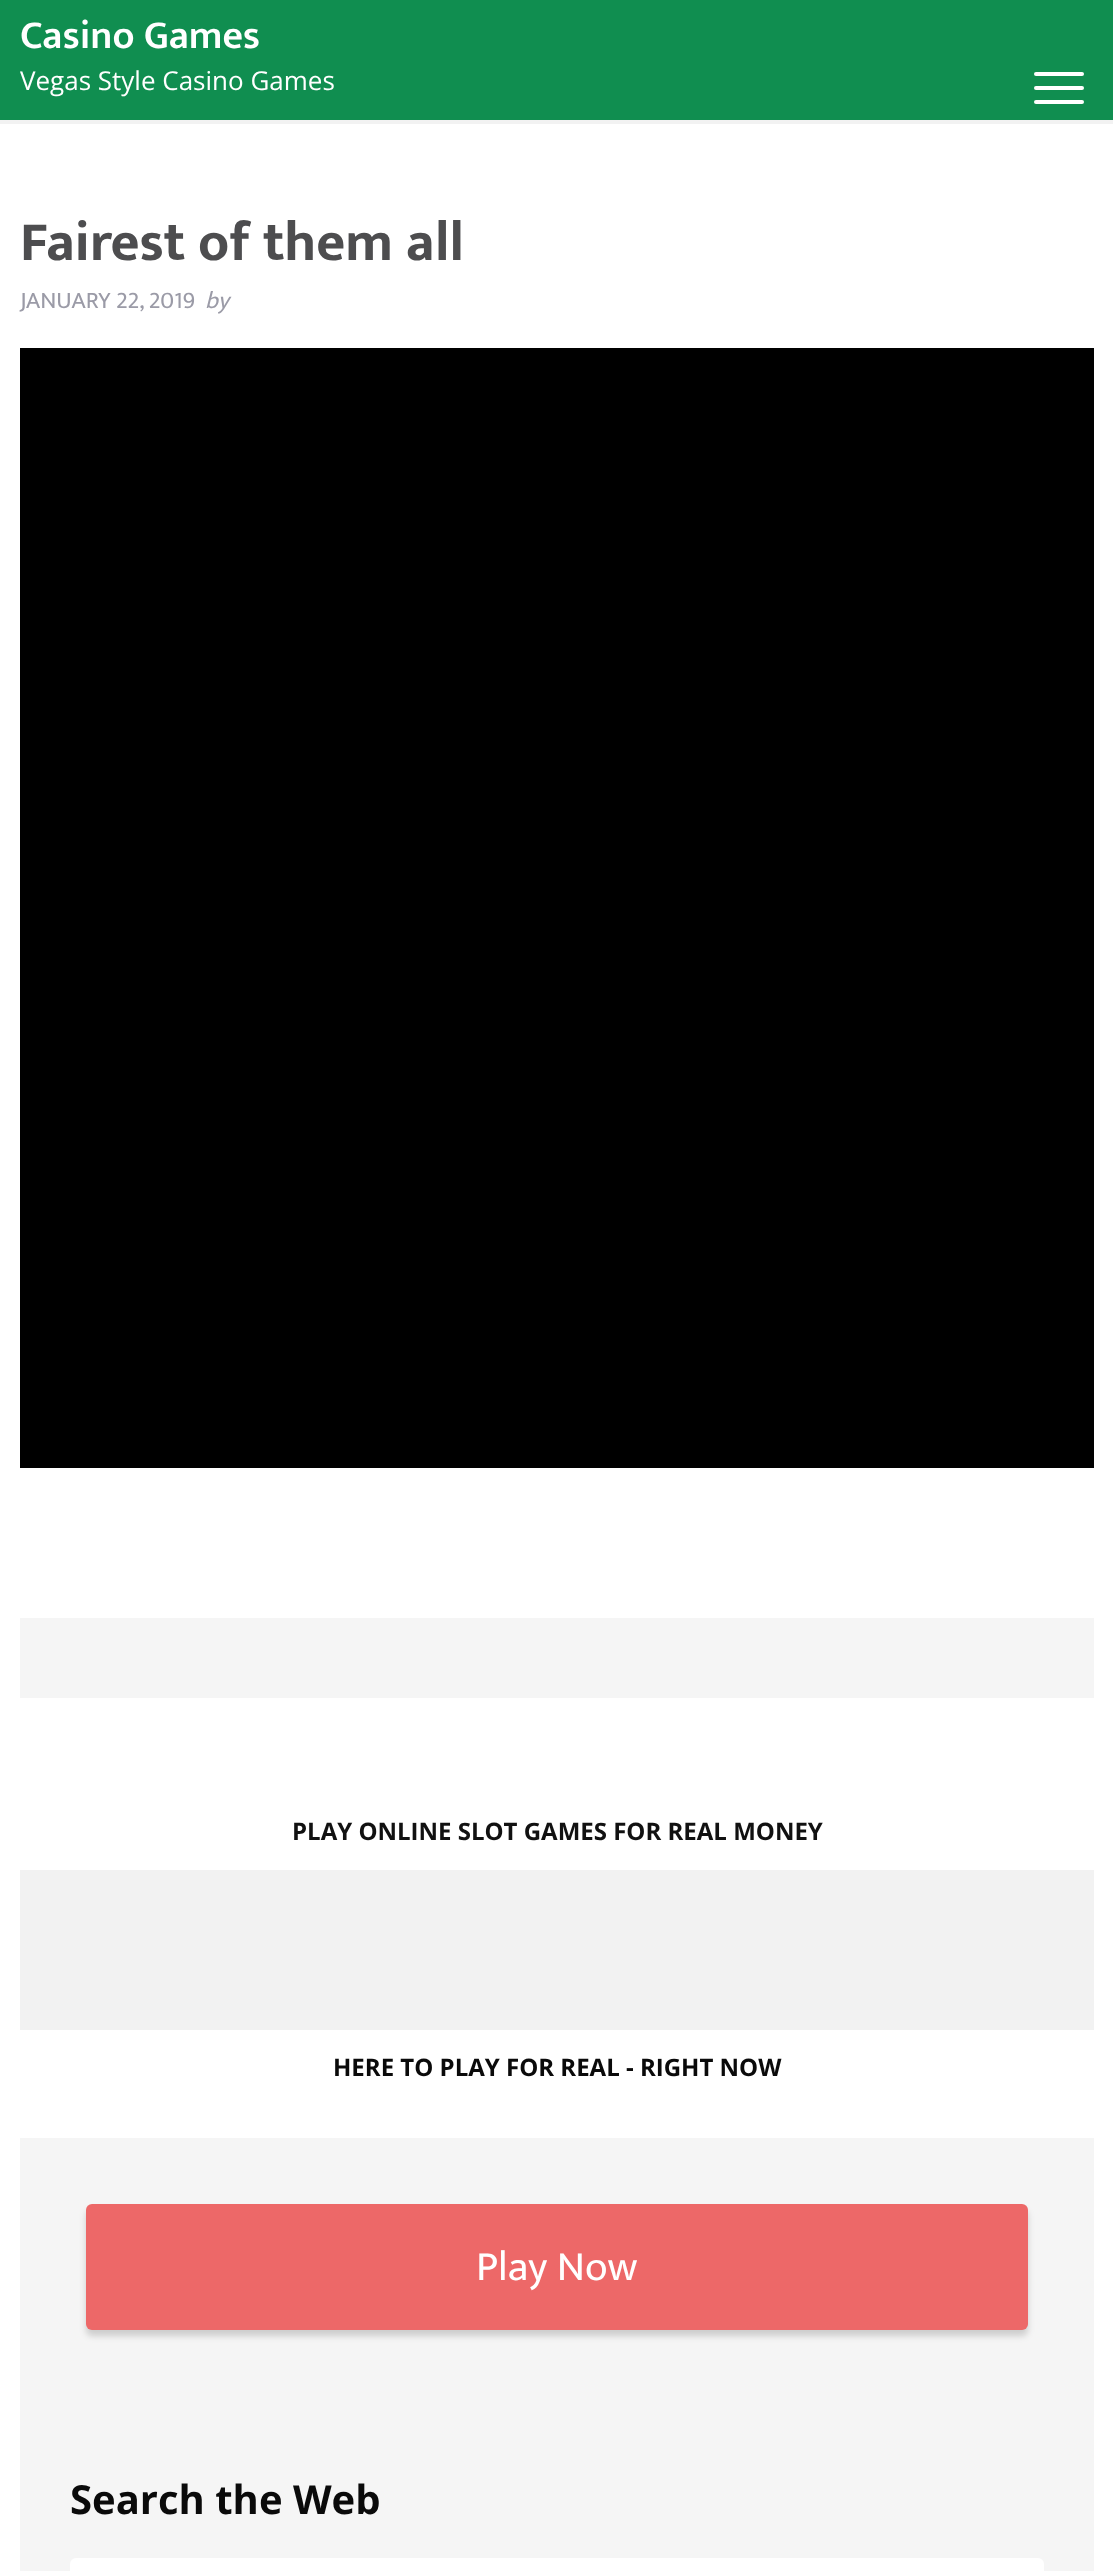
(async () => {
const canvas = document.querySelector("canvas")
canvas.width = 1113
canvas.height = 2571
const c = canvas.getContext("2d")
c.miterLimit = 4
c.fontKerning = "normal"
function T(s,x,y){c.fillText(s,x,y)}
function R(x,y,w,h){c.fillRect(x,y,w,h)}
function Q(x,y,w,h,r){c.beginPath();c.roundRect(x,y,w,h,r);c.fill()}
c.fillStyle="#fff"
R(0,0,1113,2571)
c.fillStyle="#f2f2f2"
R(0,120,1113,4)
c.fillStyle="#108e50"
R(0,0,1113,120)
c.font="600 40px Ek Mukta"
c.fillStyle="#fff"
T("Casino Games",20,48)
c.font="26px Open Sans"
T("Vegas Style Casino Games",20,90)
Q(1034,72,50,4,2)
Q(1034,86,50,4,2)
Q(1034,100,50,4,2)
c.font="bold 56px Ek Mukta"
c.fillStyle="#4d4d4f"
T("Fairest of them all",20,260)
c.font="24px Ek Mukta"
c.fillStyle="#9b9ba7"
T("JANUARY 22, 2019",20,308)
c.font="italic 24px Ek Mukta"
T("by",205,308)
c.fillStyle="#000"
R(20,348,1074,1120)
c.fillStyle="#f5f5f5"
R(20,1618,1074,80)
c.font="bold 24px Open Sans"
c.fillStyle="#111"
T("PLAY ONLINE SLOT GAMES FOR REAL MONEY",292,1840)
c.fillStyle="#f2f2f2"
R(20,1870,1074,160)
c.fillStyle="#0a0a0a"
T("HERE TO PLAY FOR REAL - RIGHT NOW",333,2076)
c.fillStyle="#f5f5f5"
R(20,2138,1074,433)
c.fillStyle="#00000029"
c.filter="blur(3px)"
c.beginPath()
c.roundRect(86,2210,942,126,6)
c.fill()
c.filter="none"
c.fillStyle="#ed6868"
Q(86,2204,942,126,6)
c.font="42px Ek Mukta"
c.fillStyle="#fff"
T("Play Now",476,2280)
c.font="bold 40px Open Sans"
c.fillStyle="#0a0a0a"
T("Search the Web",70,2514)
c.fillStyle="#fff"
Q(70,2558,974,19,6)
})()
